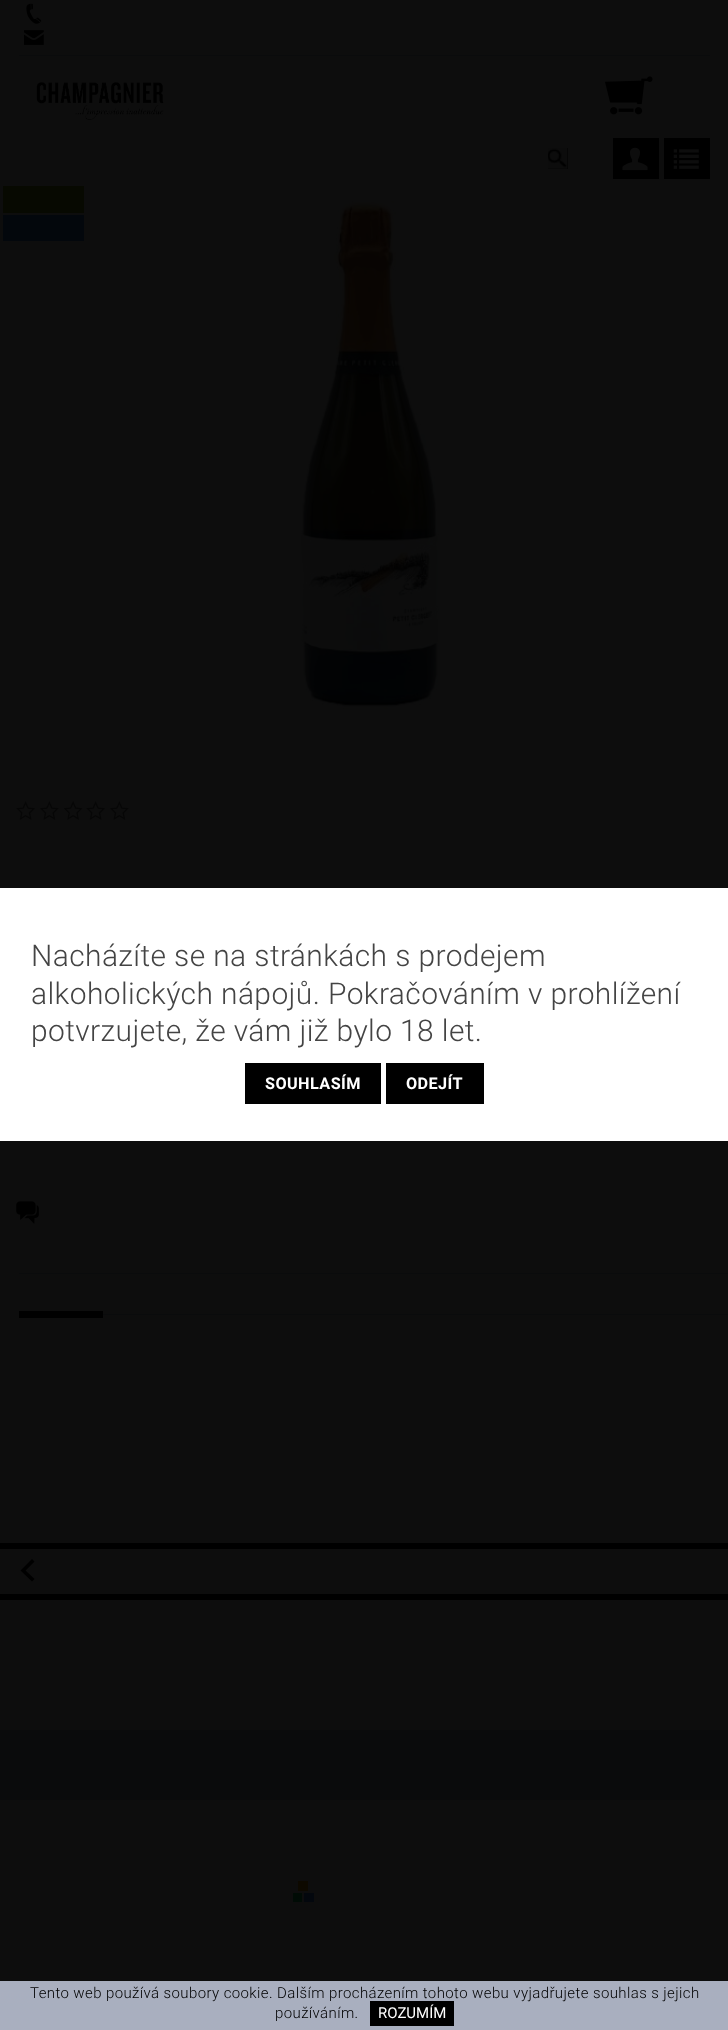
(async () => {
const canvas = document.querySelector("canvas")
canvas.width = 728
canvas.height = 2030
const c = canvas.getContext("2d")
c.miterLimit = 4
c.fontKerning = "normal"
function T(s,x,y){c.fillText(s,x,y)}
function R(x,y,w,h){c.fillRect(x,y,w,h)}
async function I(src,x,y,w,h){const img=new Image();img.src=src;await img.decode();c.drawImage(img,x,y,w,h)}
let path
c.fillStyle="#0d0d0d"
R(0,0,728,2030)
c.fillStyle="#0a0b0c"
R(19,55,691,1)
await I("1.png",26,3,16,21)
await I("2.png",24,30,20,15)
await I("3.png",36,82,128,38)
await I("4.png",605,76,48,39)
c.fillStyle="#000"
R(548,148,20,21)
await I("5.png",548,148,20,21)
R(613,138,46,41)
await I("6.png",622,147,26,24)
R(664,138,46,41)
await I("7.png",673,149,26,20)
c.fillStyle="#070901"
R(3,186,81,27)
c.fillStyle="#03070c"
R(3,215,81,26)
await I("8.png",301,201,138,509)
await I("9.png",16,801,19,19)
await I("10.png",40,801,19,19)
await I("11.png",64,801,19,19)
await I("9.png",86,801,19,19)
await I("10.png",110,801,19,19)
await I("12.png",16,1201,23,23)
c.fillStyle="#0a0b0c"
R(19,1273,709,1)
R(103,1314,625,1)
c.fillStyle="#000"
R(19,1311,84,7)
R(0,1543,728,6)
R(0,1594,728,6)
path = new Path2D("M32 1559l-11.5 11.5l11.5 11l2.5-2.5l-9-8.5l9-9z")
c.fill(path)
c.fillStyle="#0a0b0c"
R(0,1730,728,70)
c.fillStyle="#0d0900"
R(298,1881,10,10)
c.fillStyle="#000b05"
R(293,1893,9,9)
c.fillStyle="#03070d"
R(304,1893,10,9)
c.fillStyle="#fff"
R(0,888,728,253)
c.letterSpacing="0.4px"
c.font="300 30px Roboto"
c.fillStyle="#444"
T("Nacházíte se na stránkách s prodejem",31,966)
T("alkoholických nápojů. Pokračováním v prohlížení",31,1004)
T("potvrzujete, že vám již bylo 18 let.",31,1041)
c.fillStyle="#000"
R(245,1063,136,41)
c.font="bold 16.25px Roboto"
c.fillStyle="#fff"
T("SOUHLASÍM",265,1089)
c.fillStyle="#000"
R(386,1063,98,41)
c.fillStyle="#fff"
T("ODEJÍT",406,1089)
c.fillStyle="#a9afbf"
R(0,1981,728,49)
c.font="300 15px Roboto"
c.fillStyle="#000"
T("Tento web používá soubory cookie. Dalším procházením tohoto webu vyjadřujete souhlas s jejich",30,1998)
T("používáním.",275,2018)
R(370,2001,84,25)
c.letterSpacing="0px"
c.font="15px Roboto"
c.fillStyle="#fff"
T("ROZUMÍM",378,2018)
})()
